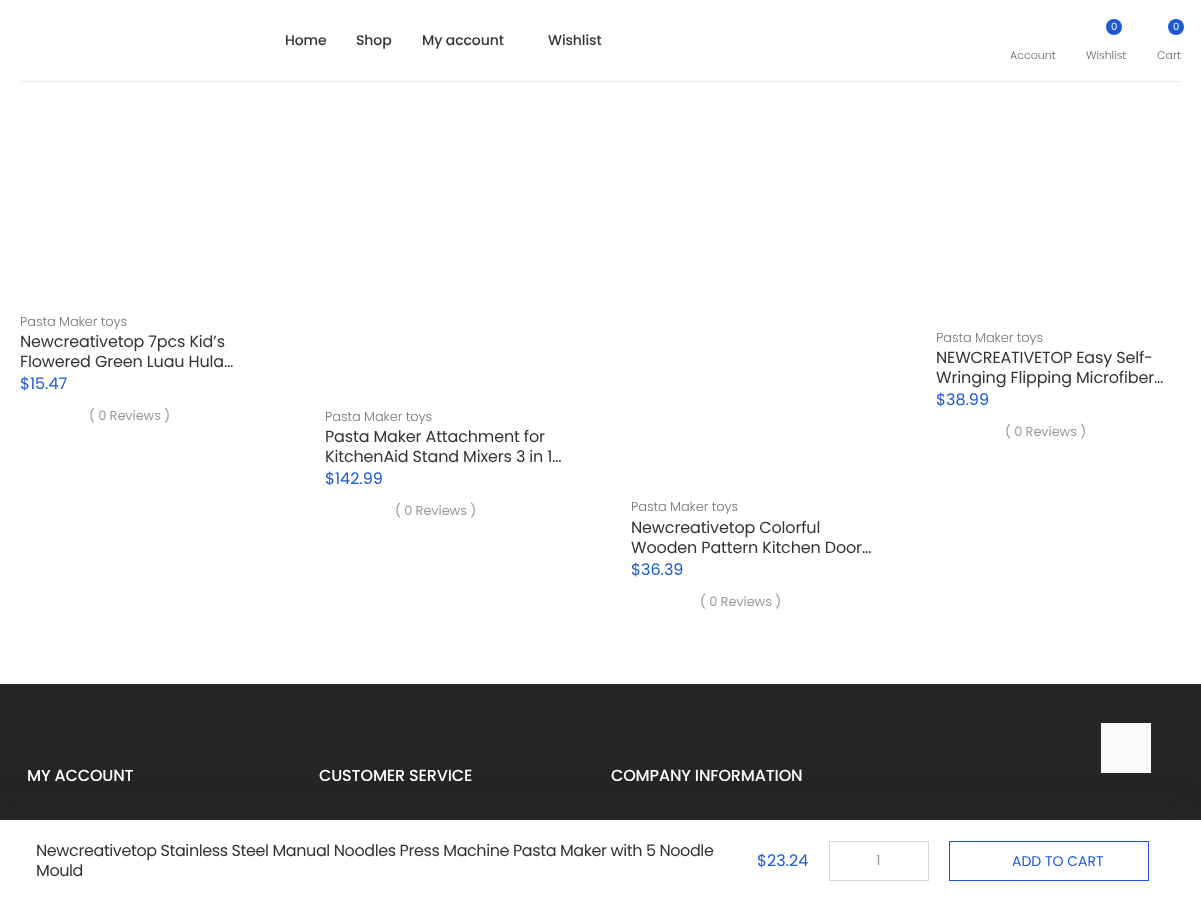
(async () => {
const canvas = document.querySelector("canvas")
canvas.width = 1201
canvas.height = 901
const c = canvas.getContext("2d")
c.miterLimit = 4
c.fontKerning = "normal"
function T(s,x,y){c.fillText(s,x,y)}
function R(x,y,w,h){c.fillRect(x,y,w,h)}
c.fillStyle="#fff"
R(0,0,1201,901)
c.fillStyle="#ebebeb"
R(20,81,1161,1)
c.letterSpacing="-0.1px"
c.font="500 14px Poppins"
c.fillStyle="#333"
T("Home",285,45)
T("Shop",356,45)
T("My account",422,45)
T("Wishlist",548,45)
c.letterSpacing="0px"
c.font="300 11px Poppins"
c.fillStyle="#666"
T("Account",1010,59)
c.fillStyle="#1e59d4"
c.beginPath()
c.arc(1114,27,8,0,7)
c.fill()
c.font="10px Poppins"
c.fillStyle="#fff"
T("0",1111,30)
c.font="300 11px Poppins"
c.fillStyle="#666"
T("Wishlist",1086,59)
c.fillStyle="#1e59d4"
c.beginPath()
c.arc(1176,27,8,0,7)
c.fill()
c.font="10px Poppins"
c.fillStyle="#fff"
T("0",1173,30)
c.font="300 11px Poppins"
c.fillStyle="#666"
T("Cart",1157,59)
c.letterSpacing="-0.1px"
c.font="300 13px Poppins"
c.fillStyle="#777"
T("Pasta Maker toys",20,326)
c.letterSpacing="-0.15px"
c.font="16px Poppins"
c.fillStyle="#333"
T("Newcreativetop 7pcs Kid’s",20,347)
T("Flowered Green Luau Hula…",20,367)
c.letterSpacing="0px"
c.fillStyle="#1e59d4"
T("$15.47",20,389)
c.letterSpacing="-0.1px"
c.font="13px Poppins"
c.fillStyle="#999"
T("( 0 Reviews )",89,420)
c.font="300 13px Poppins"
c.fillStyle="#777"
T("Pasta Maker toys",936,342)
c.letterSpacing="-0.15px"
c.font="16px Poppins"
c.fillStyle="#333"
T("NEWCREATIVETOP Easy Self-",936,363)
T("Wringing Flipping Microfiber…",936,383)
c.letterSpacing="0px"
c.fillStyle="#1e59d4"
T("$38.99",936,405)
c.letterSpacing="-0.1px"
c.font="13px Poppins"
c.fillStyle="#999"
T("( 0 Reviews )",1005,436)
c.font="300 13px Poppins"
c.fillStyle="#777"
T("Pasta Maker toys",325,421)
c.letterSpacing="-0.15px"
c.font="16px Poppins"
c.fillStyle="#333"
T("Pasta Maker Attachment for",325,442)
T("KitchenAid Stand Mixers 3 in 1…",325,462)
c.letterSpacing="0px"
c.fillStyle="#1e59d4"
T("$142.99",325,484)
c.letterSpacing="-0.1px"
c.font="13px Poppins"
c.fillStyle="#999"
T("( 0 Reviews )",395,515)
c.font="300 13px Poppins"
c.fillStyle="#777"
T("Pasta Maker toys",631,511)
c.letterSpacing="-0.15px"
c.font="16px Poppins"
c.fillStyle="#333"
T("Newcreativetop Colorful",631,533)
T("Wooden Pattern Kitchen Door…",631,553)
c.letterSpacing="0px"
c.fillStyle="#1e59d4"
T("$36.39",631,575)
c.letterSpacing="-0.1px"
c.font="13px Poppins"
c.fillStyle="#999"
T("( 0 Reviews )",700,606)
c.fillStyle="#252525"
R(0,684,1201,136)
c.fillStyle="#33333326"
c.filter="blur(21.5px)"
c.beginPath()
c.rect(-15,820,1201,81)
c.fill()
c.filter="none"
c.fillStyle="#fff"
R(0,820,1201,81)
c.letterSpacing="-0.4px"
c.font="16px Poppins"
c.fillStyle="#333"
T("Newcreativetop Stainless Steel Manual Noodles Press Machine Pasta Maker with 5 Noodle",36,856)
T("Mould",36,876)
c.letterSpacing="0px"
c.fillStyle="#1e59d4"
T("$23.24",757,866)
c.strokeStyle="#d7d7d7"
c.strokeRect(829.5,841.5,99,39)
c.font="14px Poppins"
c.fillStyle="#999"
T("1",876,865)
c.strokeStyle="#1e59d4"
c.strokeRect(949.5,841.5,199,39)
c.fillStyle="#1e59d4"
T("ADD TO CART",1012,866)
c.fillStyle="#fafafa"
R(1101,723,50,50)
c.letterSpacing="-0.15px"
c.font="500 16px Poppins"
c.fillStyle="#fff"
T("MY ACCOUNT",27,781)
T("CUSTOMER SERVICE",319,781)
T("COMPANY INFORMATION",611,781)
})()
